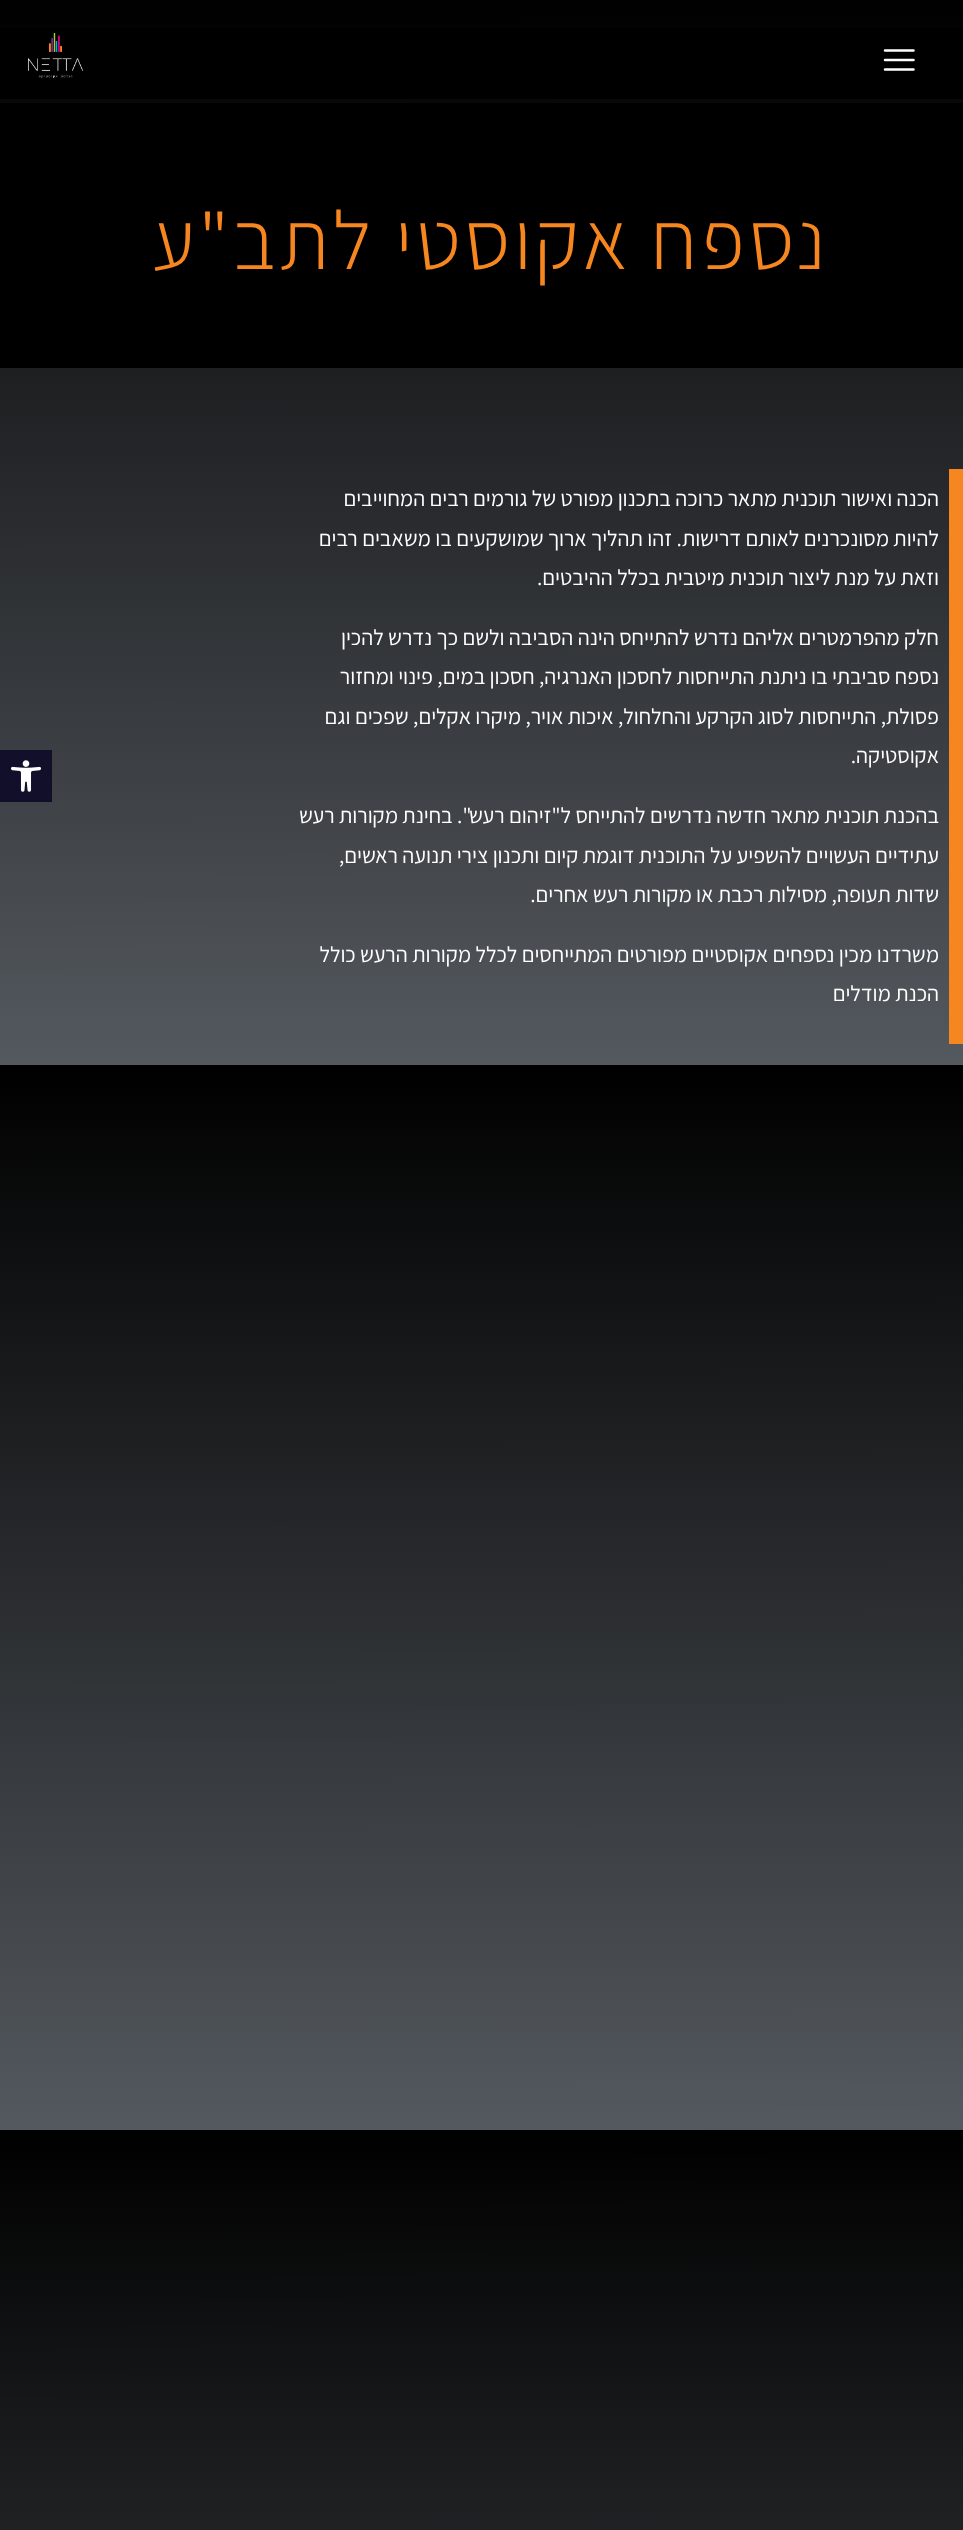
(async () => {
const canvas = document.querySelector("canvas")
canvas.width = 963
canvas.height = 2530
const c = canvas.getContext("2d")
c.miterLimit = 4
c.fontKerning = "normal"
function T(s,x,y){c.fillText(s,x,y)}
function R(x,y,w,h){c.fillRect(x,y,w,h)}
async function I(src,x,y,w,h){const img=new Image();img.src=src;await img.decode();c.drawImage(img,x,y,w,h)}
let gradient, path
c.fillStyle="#fff"
R(0,0,963,2530)
gradient = c.createLinearGradient(481,0,482,1065)
gradient.addColorStop(0,"#000")
gradient.addColorStop(1,"#54595f")
c.fillStyle = gradient
R(0,0,963,1065)
gradient = c.createLinearGradient(481,1065,482,2130)
gradient.addColorStop(0,"#000")
gradient.addColorStop(1,"#54595f")
c.fillStyle = gradient
R(0,1065,963,1065)
gradient = c.createLinearGradient(481,2130,482,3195)
gradient.addColorStop(0,"#000")
gradient.addColorStop(1,"#54595f")
c.fillStyle = gradient
R(0,2130,963,400)
c.fillStyle="#000"
R(0,28,963,71)
path = new Path2D("M885 69.5h28.5m-28.5-9.5h28.5m-28.5-9.5h28.5")
c.strokeStyle="#fff"
c.lineWidth=2.5
c.lineCap="round"
c.lineJoin="round"
c.stroke(path)
await I("1.png",28,33,55,45)
R(0,103,963,265)
c.letterSpacing="3.5px"
c.direction="rtl"
c.font="300 83px Assistant"
c.fillStyle="#f6861f"
T("נספח אקוסטי לתב\"ע",829,269)
R(949,469,14,575)
c.letterSpacing="0px"
c.font="22px Assistant"
c.fillStyle="#fff"
T("הכנה ואישור תוכנית מתאר כרוכה בתכנון מפורט של גורמים רבים המחוייבים",939,506)
T("להיות מסונכרנים לאותם דרישות. זהו תהליך ארוך שמושקעים בו משאבים רבים",939,546)
T("וזאת על מנת ליצור תוכנית מיטבית בכלל ההיבטים.",939,585)
T("חלק מהפרמטרים אליהם נדרש להתייחס הינה הסביבה ולשם כך נדרש להכין",939,645)
T("נספח סביבתי בו ניתנת התייחסות לחסכון האנרגיה, חסכון במים, פינוי ומחזור",939,684)
T("פסולת, התייחסות לסוג הקרקע והחלחול, איכות אויר, מיקרו אקלים, שפכים וגם",939,724)
T("אקוסטיקה.",939,763)
T("בהכנת תוכנית מתאר חדשה נדרשים להתייחס ל\"זיהום רעש\". בחינת מקורות רעש",939,823)
T("עתידיים העשויים להשפיע על התוכנית דוגמת קיום ותכנון צירי תנועה ראשים,",939,863)
T("שדות תעופה, מסילות רכבת או מקורות רעש אחרים.",939,902)
T("משרדנו מכין נספחים אקוסטיים מפורטים המתייחסים לכלל מקורות הרעש כולל",939,962)
T("הכנת מודלים",939,1001)
c.fillStyle="#120f2b"
R(0,750,52,52)
await I("2.png",11,760,30,32)
})()
